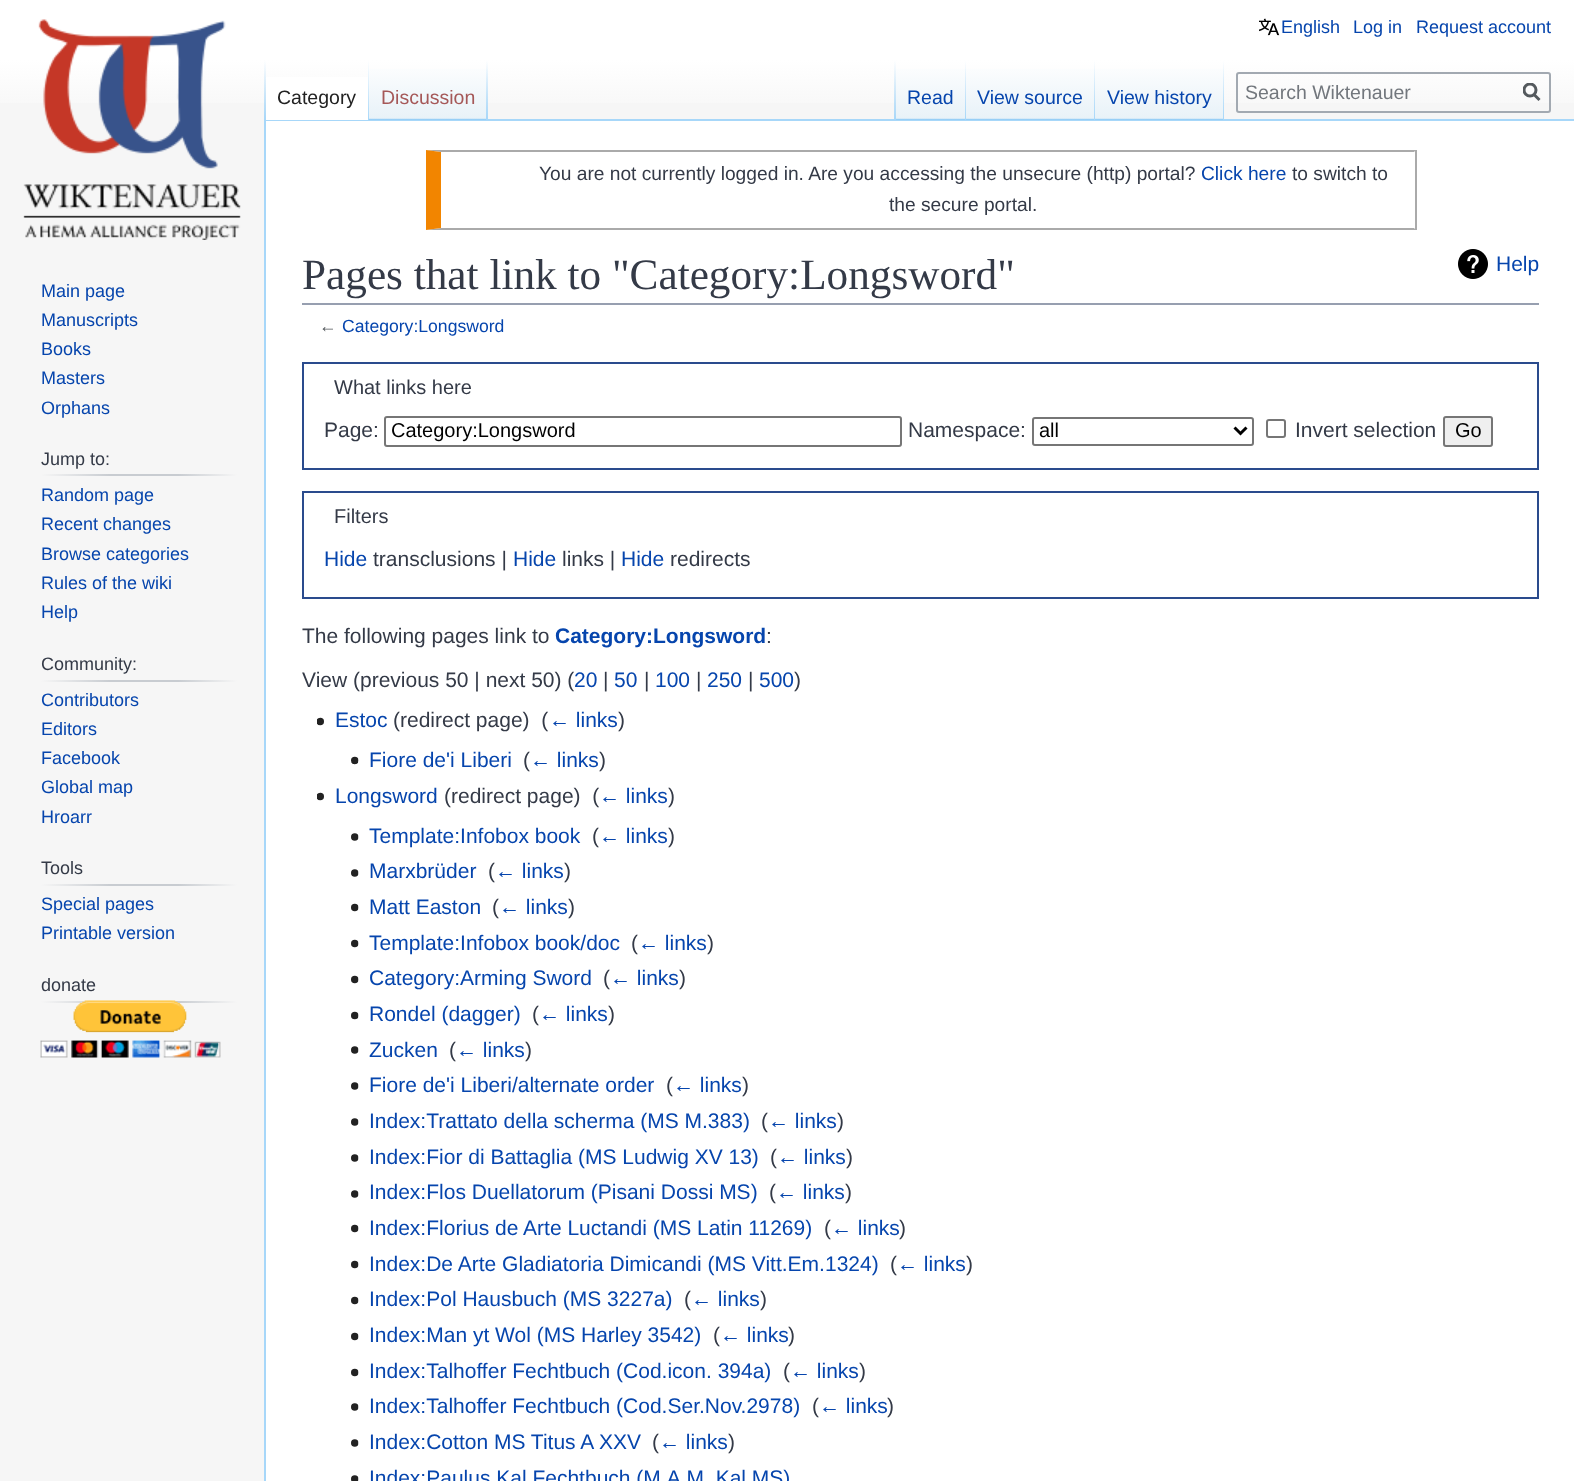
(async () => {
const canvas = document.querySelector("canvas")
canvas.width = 1574
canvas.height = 1481
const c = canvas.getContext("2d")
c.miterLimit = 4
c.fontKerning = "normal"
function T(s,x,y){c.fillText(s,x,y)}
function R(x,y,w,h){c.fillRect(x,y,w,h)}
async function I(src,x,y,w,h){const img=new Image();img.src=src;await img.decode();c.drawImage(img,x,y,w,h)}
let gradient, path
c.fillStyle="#f6f6f6"
R(0,0,1574,1481)
gradient = c.createLinearGradient(788,0,788,120)
gradient.addColorStop(.5,"#fff")
gradient.addColorStop(1,"#f6f6f6")
c.fillStyle = gradient
R(0,0,1574,103)
await I("1.png",1259,18,21,18)
c.font="18px Liberation Sans"
c.fillStyle="#0645ad"
T("English",1281,33)
T("Log in",1353,33)
T("Request account",1416,33)
c.fillStyle="#a7d7f9"
R(264,119,1310,2)
R(264,119,2,1362)
gradient = c.createLinearGradient(265,60,265,120)
gradient.addColorStop(0,"#a7d7f900")
gradient.addColorStop(1,"#a7d7f9")
c.fillStyle = gradient
R(264,60,2,60)
c.fillStyle="#fff"
R(266,77,102,43)
gradient = c.createLinearGradient(368,60,368,120)
gradient.addColorStop(0,"#fff")
gradient.addColorStop(1,"#a7d7f9")
c.fillStyle = gradient
R(368,60,1,60)
c.font="19.5px Liberation Sans"
c.fillStyle="#222"
T("Category",277,104)
gradient = c.createLinearGradient(428,120,428,60)
gradient.addColorStop(0,"#77c1f6")
gradient.addColorStop(.03,"#e8f2f8")
gradient.addColorStop(1,"#fff")
c.fillStyle = gradient
R(369,69,119,51)
gradient = c.createLinearGradient(487,60,487,120)
gradient.addColorStop(0,"#a7d7f900")
gradient.addColorStop(1,"#a7d7f9")
c.fillStyle = gradient
R(486,60,2,60)
c.fillStyle="#a55858"
T("Discussion",381,104)
gradient = c.createLinearGradient(895,60,895,120)
gradient.addColorStop(0,"#a7d7f900")
gradient.addColorStop(1,"#a7d7f9")
c.fillStyle = gradient
R(894,60,2,60)
gradient = c.createLinearGradient(931,120,931,60)
gradient.addColorStop(0,"#77c1f6")
gradient.addColorStop(.03,"#e8f2f8")
gradient.addColorStop(1,"#fff")
c.fillStyle = gradient
R(896,69,70,51)
gradient = c.createLinearGradient(965,60,965,120)
gradient.addColorStop(0,"#a7d7f900")
gradient.addColorStop(1,"#a7d7f9")
c.fillStyle = gradient
R(965,60,1,60)
c.fillStyle="#0645ad"
T("Read",907,104)
gradient = c.createLinearGradient(1031,120,1031,60)
gradient.addColorStop(0,"#77c1f6")
gradient.addColorStop(.03,"#e8f2f8")
gradient.addColorStop(1,"#fff")
c.fillStyle = gradient
R(966,69,129,51)
gradient = c.createLinearGradient(1094,60,1094,120)
gradient.addColorStop(0,"#a7d7f900")
gradient.addColorStop(1,"#a7d7f9")
c.fillStyle = gradient
R(1094,60,1,60)
c.fillStyle="#0645ad"
T("View source",977,104)
gradient = c.createLinearGradient(1160,120,1160,60)
gradient.addColorStop(0,"#77c1f6")
gradient.addColorStop(.03,"#e8f2f8")
gradient.addColorStop(1,"#fff")
c.fillStyle = gradient
R(1095,69,129,51)
gradient = c.createLinearGradient(1223,60,1223,120)
gradient.addColorStop(0,"#a7d7f900")
gradient.addColorStop(1,"#a7d7f9")
c.fillStyle = gradient
R(1223,60,1,60)
c.fillStyle="#0645ad"
T("View history",1107,104)
c.beginPath()
c.roundRect(1237,73,313,39,2)
c.strokeStyle="#a2a9b1"
c.lineWidth=2
c.stroke()
c.fillStyle="#72777d"
T("Search Wiktenauer",1245,99)
path = new Path2D("M1539.5 100l-6-6")
c.strokeStyle="#54595d"
c.lineWidth=3
c.stroke(path)
c.save()
c.beginPath()
c.rect(1523,83,18,19)
c.clip()
c.beginPath()
c.arc(1530,90,6,0,7)
c.stroke()
c.restore()
await I("2.png",23,19,218,221)
c.font="18px Liberation Sans"
c.fillStyle="#0645ad"
T("Main page",41,297)
T("Manuscripts",41,326)
T("Books",41,355)
T("Masters",41,384)
T("Orphans",41,414)
c.fillStyle="#343a47"
T("Jump to:",41,465)
gradient = c.createLinearGradient(41,475,237,475)
gradient.addColorStop(0,"#f6f6f6")
gradient.addColorStop(.35,"#c8ccd1")
gradient.addColorStop(.7,"#c8ccd1")
gradient.addColorStop(1,"#f6f6f6")
c.fillStyle = gradient
R(41,474,196,2)
c.fillStyle="#0645ad"
T("Random page",41,501)
T("Recent changes",41,530)
T("Browse categories",41,560)
T("Rules of the wiki",41,589)
T("Help",41,618)
c.fillStyle="#343a47"
T("Community:",41,670)
gradient = c.createLinearGradient(41,680,237,680)
gradient.addColorStop(0,"#f6f6f6")
gradient.addColorStop(.35,"#c8ccd1")
gradient.addColorStop(.7,"#c8ccd1")
gradient.addColorStop(1,"#f6f6f6")
c.fillStyle = gradient
R(41,680,196,2)
c.fillStyle="#0645ad"
T("Contributors",41,706)
T("Editors",41,735)
T("Facebook",41,764)
T("Global map",41,793)
T("Hroarr",41,823)
c.fillStyle="#343a47"
T("Tools",41,874)
gradient = c.createLinearGradient(41,884,237,884)
gradient.addColorStop(0,"#f6f6f6")
gradient.addColorStop(.35,"#c8ccd1")
gradient.addColorStop(.7,"#c8ccd1")
gradient.addColorStop(1,"#f6f6f6")
c.fillStyle = gradient
R(41,884,196,2)
c.fillStyle="#0645ad"
T("Special pages",41,910)
T("Printable version",41,939)
c.fillStyle="#343a47"
T("donate",41,991)
gradient = c.createLinearGradient(41,1001,237,1001)
gradient.addColorStop(0,"#f6f6f6")
gradient.addColorStop(.35,"#c8ccd1")
gradient.addColorStop(.7,"#c8ccd1")
gradient.addColorStop(1,"#f6f6f6")
c.fillStyle = gradient
R(41,1001,196,2)
await I("3.png",40,1000,181,58)
c.fillStyle="#fff"
R(266,121,1308,1360)
c.fillStyle="#aaa"
path = new Path2D("M426 150h990l-2 2h-973z")
c.fill(path)
R(1415,150,2,80)
path = new Path2D("M1416 230h-990l15-2h973z")
c.fill(path)
c.fillStyle="#f28500"
path = new Path2D("M426 230v-80l15 2v76z")
c.fill(path)
c.font="19.2px Liberation Sans"
c.fillStyle="#343a47"
T("You are not currently logged in. Are you accessing the unsecure (http) portal?",539,180)
c.fillStyle="#0645ad"
T("Click here",1201,180)
c.fillStyle="#343a47"
T("to switch to",1292,180)
T("the secure portal.",889,211)
c.fillStyle="#979fb0"
R(302,303,1237,2)
c.font="43.25px Liberation Serif"
c.fillStyle="#343a47"
T("Pages that link to \"Category:Longsword\"",302,289)
await I("4.png",1458,249,30,30)
c.font="21px Liberation Sans"
c.fillStyle="#0645ad"
T("Help",1496,271)
c.font="17.6px Liberation Sans"
c.fillStyle="#54595d"
T("←",319,332)
c.fillStyle="#0645ad"
T("Category:Longsword",342,332)
c.strokeStyle="#2a4b8d"
c.lineWidth=2
c.strokeRect(303,363,1235,106)
c.font="20px Liberation Sans"
c.fillStyle="#343a47"
T("What links here",334,394)
c.font="21px Liberation Sans"
T("Page:",324,437)
c.beginPath()
c.roundRect(385,417,516,29,2)
c.strokeStyle="#767676"
c.stroke()
c.font="20px Liberation Sans"
c.fillStyle="#000"
T("Category:Longsword",391,437)
c.font="21px Liberation Sans"
c.fillStyle="#343a47"
T("Namespace:",908,437)
c.beginPath()
c.roundRect(1033,418,220,27,2)
c.stroke()
path = new Path2D("M1234.5 427.5l6 6l6-6")
c.strokeStyle="#000"
c.lineWidth=3
c.stroke(path)
c.font="20px Liberation Sans"
c.fillStyle="#000"
T("all",1039,437)
c.beginPath()
c.roundRect(1267,420,18,17,2)
c.strokeStyle="#767676"
c.lineWidth=2
c.stroke()
c.font="21px Liberation Sans"
c.fillStyle="#343a47"
T("Invert selection",1295,437)
c.fillStyle="#efefef"
c.beginPath()
c.roundRect(1444,417,48,29,2)
c.fill()
c.stroke()
c.font="20px Liberation Sans"
c.fillStyle="#000"
T("Go",1455,437)
c.strokeStyle="#2a4b8d"
c.strokeRect(303,492,1235,106)
c.fillStyle="#343a47"
T("Filters",334,523)
c.font="21px Liberation Sans"
c.fillStyle="#0645ad"
T("Hide",324,566)
c.fillStyle="#343a47"
T("transclusions |",373,566)
c.fillStyle="#0645ad"
T("Hide",513,566)
c.fillStyle="#343a47"
T("links |",562,566)
c.fillStyle="#0645ad"
T("Hide",621,566)
c.fillStyle="#343a47"
T("redirects",670,566)
T("The following pages link to",302,643)
c.font="bold 21px Liberation Sans"
c.fillStyle="#0645ad"
T("Category:Longsword",555,643)
c.font="21px Liberation Sans"
c.fillStyle="#343a47"
T(":",766,643)
T("View (previous 50 | next 50) (",302,687)
c.fillStyle="#0645ad"
T("20",574,687)
c.fillStyle="#343a47"
T("|",603,687)
c.fillStyle="#0645ad"
T("50",614,687)
c.fillStyle="#343a47"
T("|",644,687)
c.fillStyle="#0645ad"
T("100",655,687)
c.fillStyle="#343a47"
T("|",696,687)
c.fillStyle="#0645ad"
T("250",707,687)
c.fillStyle="#343a47"
T("|",748,687)
c.fillStyle="#0645ad"
T("500",759,687)
c.fillStyle="#343a47"
T(")",794,687)
await I("5.png",317,717,7,9)
c.fillStyle="#0645ad"
T("Estoc",335,727)
c.fillStyle="#343a47"
T("(redirect page)  (",393,727)
c.fillStyle="#0645ad"
T("← links",549,727)
c.fillStyle="#343a47"
T(")",618,727)
await I("6.png",351,756,8,9)
c.fillStyle="#0645ad"
T("Fiore de'i Liberi",369,767)
c.fillStyle="#343a47"
T("(",523,767)
c.fillStyle="#0645ad"
T("← links",530,767)
c.fillStyle="#343a47"
T(")",599,767)
await I("5.png",317,792,7,9)
c.fillStyle="#0645ad"
T("Longsword",335,803)
c.fillStyle="#343a47"
T("(redirect page)  (",444,803)
c.fillStyle="#0645ad"
T("← links",599,803)
c.fillStyle="#343a47"
T(")",668,803)
await I("7.png",351,833,8,8)
c.fillStyle="#0645ad"
T("Template:Infobox book",369,843)
c.fillStyle="#343a47"
T("(",592,843)
c.fillStyle="#0645ad"
T("← links",599,843)
c.fillStyle="#343a47"
T(")",668,843)
await I("7.png",351,869,8,8)
c.fillStyle="#0645ad"
T("Marxbrüder",369,878)
c.fillStyle="#343a47"
T("(",488,878)
c.fillStyle="#0645ad"
T("← links",495,878)
c.fillStyle="#343a47"
T(")",564,878)
await I("8.png",351,903,8,9)
c.fillStyle="#0645ad"
T("Matt Easton",369,914)
c.fillStyle="#343a47"
T("(",492,914)
c.fillStyle="#0645ad"
T("← links",499,914)
c.fillStyle="#343a47"
T(")",568,914)
await I("8.png",351,939,8,9)
c.fillStyle="#0645ad"
T("Template:Infobox book/doc",369,950)
c.fillStyle="#343a47"
T("(",631,950)
c.fillStyle="#0645ad"
T("← links",638,950)
c.fillStyle="#343a47"
T(")",707,950)
await I("8.png",351,975,8,9)
c.fillStyle="#0645ad"
T("Category:Arming Sword",369,985)
c.fillStyle="#343a47"
T("(",603,985)
c.fillStyle="#0645ad"
T("← links",610,985)
c.fillStyle="#343a47"
T(")",679,985)
await I("9.png",351,1011,8,9)
c.fillStyle="#0645ad"
T("Rondel (dagger)",369,1021)
c.fillStyle="#343a47"
T("(",532,1021)
c.fillStyle="#0645ad"
T("← links",539,1021)
c.fillStyle="#343a47"
T(")",608,1021)
await I("7.png",351,1046,8,8)
c.fillStyle="#0645ad"
T("Zucken",369,1057)
c.fillStyle="#343a47"
T("(",449,1057)
c.fillStyle="#0645ad"
T("← links",456,1057)
c.fillStyle="#343a47"
T(")",525,1057)
await I("7.png",351,1082,8,8)
c.fillStyle="#0645ad"
T("Fiore de'i Liberi/alternate order",369,1092)
c.fillStyle="#343a47"
T("(",666,1092)
c.fillStyle="#0645ad"
T("← links",673,1092)
c.fillStyle="#343a47"
T(")",742,1092)
await I("7.png",351,1118,8,8)
c.fillStyle="#0645ad"
T("Index:Tratt‍ato della sch‍erma (MS M.383)",369,1128)
c.fillStyle="#343a47"
T("(",761,1128)
c.fillStyle="#0645ad"
T("← links",768,1128)
c.fillStyle="#343a47"
T(")",837,1128)
await I("7.png",351,1154,8,8)
c.fillStyle="#0645ad"
T("Index:Fior di Battaglia (MS Ludwig XV 13)",369,1164)
c.fillStyle="#343a47"
T("(",770,1164)
c.fillStyle="#0645ad"
T("← links",777,1164)
c.fillStyle="#343a47"
T(")",846,1164)
await I("7.png",351,1190,8,8)
c.fillStyle="#0645ad"
T("Index:Flos Duellatorum (Pisani Dossi MS)",369,1199)
c.fillStyle="#343a47"
T("(",769,1199)
c.fillStyle="#0645ad"
T("← links",776,1199)
c.fillStyle="#343a47"
T(")",845,1199)
await I("8.png",351,1224,8,9)
c.fillStyle="#0645ad"
T("Index:Florius de Arte Luctandi (MS Latin 11269)",369,1235)
c.fillStyle="#343a47"
T("(",824,1235)
c.fillStyle="#0645ad"
T("← links",831,1235)
c.fillStyle="#343a47"
T(")",899,1235)
await I("8.png",351,1260,8,9)
c.fillStyle="#0645ad"
T("Index:De Arte Gladiatoria Dimicandi (MS Vitt.Em.1324)",369,1271)
c.fillStyle="#343a47"
T("(",890,1271)
c.fillStyle="#0645ad"
T("← links",897,1271)
c.fillStyle="#343a47"
T(")",966,1271)
await I("8.png",351,1296,8,9)
c.fillStyle="#0645ad"
T("Index:Pol Hausbuch (MS 3227a)",369,1306)
c.fillStyle="#343a47"
T("(",684,1306)
c.fillStyle="#0645ad"
T("← links",691,1306)
c.fillStyle="#343a47"
T(")",760,1306)
await I("8.png",351,1332,8,9)
c.fillStyle="#0645ad"
T("Index:Man yt Wol (MS Harley 3542)",369,1342)
c.fillStyle="#343a47"
T("(",713,1342)
c.fillStyle="#0645ad"
T("← links",720,1342)
c.fillStyle="#343a47"
T(")",788,1342)
await I("8.png",351,1368,8,9)
c.fillStyle="#0645ad"
T("Index:Talhoffer Fechtbuch (Cod.icon. 394a)",369,1378)
c.fillStyle="#343a47"
T("(",783,1378)
c.fillStyle="#0645ad"
T("← links",790,1378)
c.fillStyle="#343a47"
T(")",859,1378)
await I("7.png",351,1403,8,8)
c.fillStyle="#0645ad"
T("Index:Talhoffer Fechtbuch (Cod.Ser.Nov.2978)",369,1413)
c.fillStyle="#343a47"
T("(",812,1413)
c.fillStyle="#0645ad"
T("← links",819,1413)
c.fillStyle="#343a47"
T(")",887,1413)
await I("7.png",351,1439,8,8)
c.fillStyle="#0645ad"
T("Index:Cotton MS Titus A XXV",369,1449)
c.fillStyle="#343a47"
T("(",652,1449)
c.fillStyle="#0645ad"
T("← links",659,1449)
c.fillStyle="#343a47"
T(")",728,1449)
await I("10.png",351,1475,8,6)
c.fillStyle="#0645ad"
T("Index:Paulus Kal Fechtbuch (M.A.M. Kal MS)",369,1485)
})()
